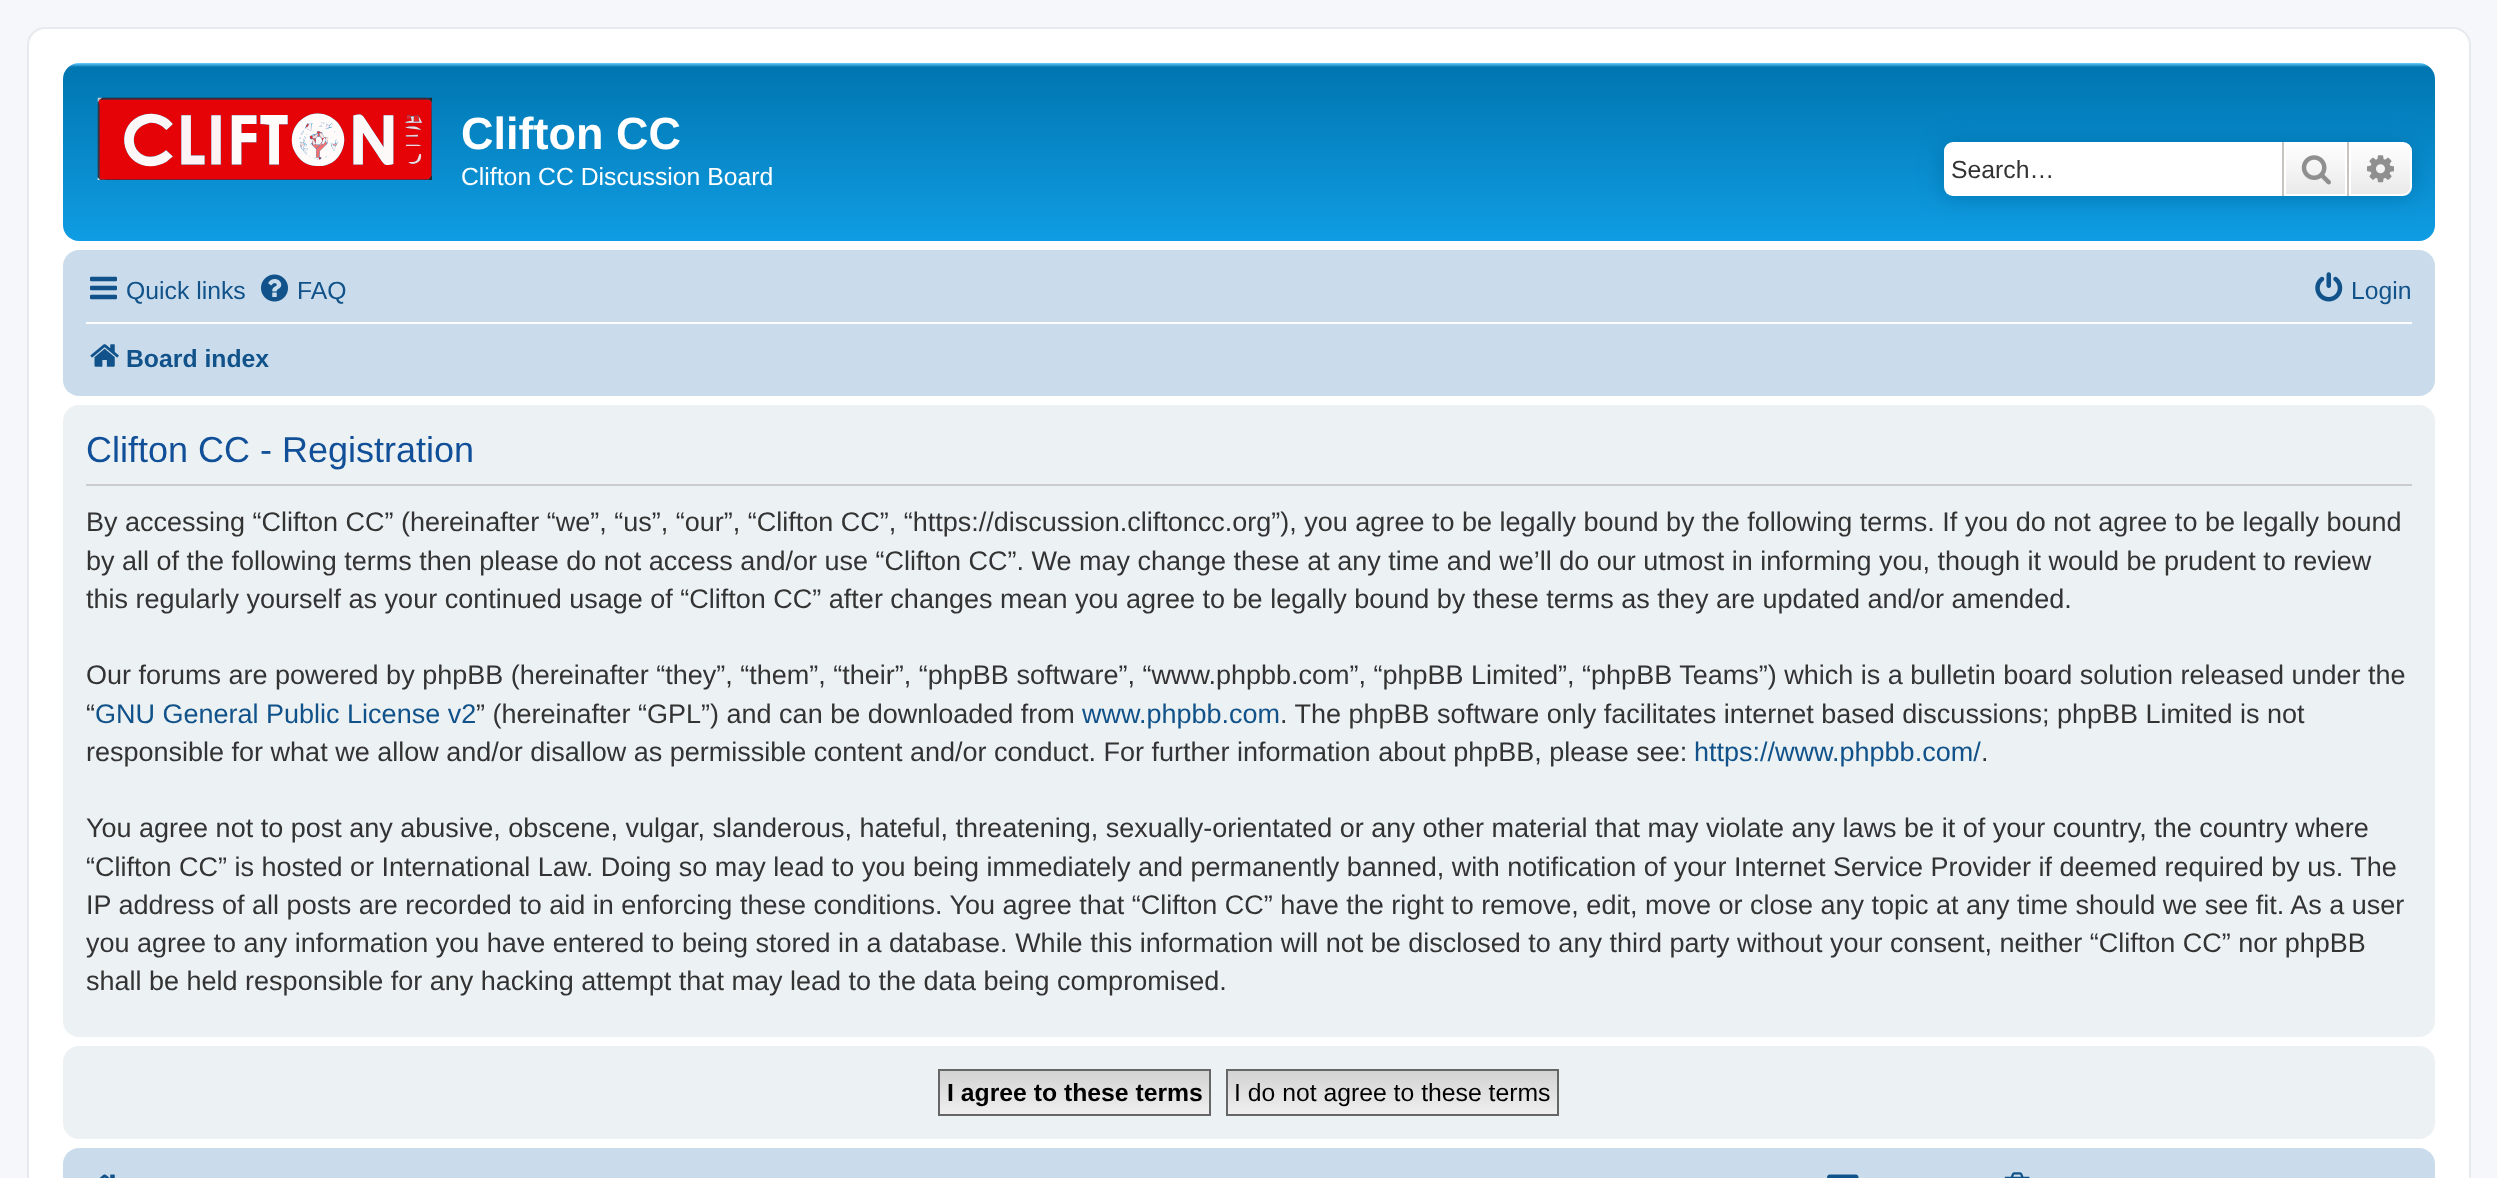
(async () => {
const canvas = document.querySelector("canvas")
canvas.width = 2497
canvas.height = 1178
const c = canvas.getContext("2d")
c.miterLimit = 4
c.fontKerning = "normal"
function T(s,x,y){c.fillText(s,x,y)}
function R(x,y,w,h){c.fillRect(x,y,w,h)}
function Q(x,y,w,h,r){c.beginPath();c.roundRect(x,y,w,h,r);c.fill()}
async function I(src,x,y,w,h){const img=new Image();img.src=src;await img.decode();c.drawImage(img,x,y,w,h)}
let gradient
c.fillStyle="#f5f7fa"
R(0,0,2497,1178)
c.fillStyle="#fff"
c.beginPath()
c.roundRect(28,28,2442,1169,17)
c.fill()
c.strokeStyle="#e6e9ed"
c.lineWidth=2
c.stroke()
gradient = c.createLinearGradient(1249,63,1249,270)
gradient.addColorStop(0,"#6aceff")
gradient.addColorStop(.02,"#0076b1")
gradient.addColorStop(1,"#12a3eb")
c.fillStyle = gradient
Q(63,63,2372,178,16)
await I("1.png",97,97,335,83)
c.font="bold 45px Liberation Sans"
c.fillStyle="#fff"
T("Clifton CC",461,149)
c.font="24.75px Liberation Sans"
T("Clifton CC Discussion Board",461,185)
c.fillStyle="#0075b0"
c.filter="blur(11px)"
c.beginPath()
c.roundRect(1944,142,468,54,9)
c.fill()
c.filter="none"
c.fillStyle="#fff"
c.beginPath()
c.roundRect(1944,142,338,54,[9,0,0,9])
c.fill()
c.fillStyle="#333"
T("Search…",1951,178)
gradient = c.createLinearGradient(2315,142,2315,196)
gradient.addColorStop(0,"#fff")
gradient.addColorStop(1,"#e9e9e9")
c.fillStyle = gradient
R(2286,144,59,50)
c.strokeStyle="#fff"
c.strokeRect(2285,143,61,52)
c.fillStyle="#c7c3bf"
R(2347,142,2,54)
R(2282,142,2,54)
await I("2.png",2301,155,30,30)
gradient = c.createLinearGradient(2381,142,2381,196)
gradient.addColorStop(0,"#fff")
gradient.addColorStop(1,"#e9e9e9")
c.fillStyle = gradient
c.beginPath()
c.roundRect(2350,143,61,52,[0,8,8,0])
c.fill()
c.stroke()
await I("3.png",2367,155,27,28)
c.fillStyle="#cadceb"
Q(63,250,2372,146,16)
await I("4.png",90,276,27,24)
c.fillStyle="#105289"
T("Quick links",126,299)
await I("5.png",261,274,27,28)
T("FAQ",297,299)
await I("6.png",2315,272,28,30)
T("Login",2351,299)
c.fillStyle="#fff"
R(86,322,2326,2)
await I("7.png",90,344,29,23)
c.font="bold 24.75px Liberation Sans"
c.fillStyle="#105289"
T("Board index",126,367)
c.fillStyle="#ecf1f3"
Q(63,405,2372,632,16)
c.fillStyle="#ccc"
R(86,484,2326,2)
c.font="36px Liberation Sans"
c.fillStyle="#115098"
T("Clifton CC - Registration",86,462)
c.font="27px Liberation Sans"
c.fillStyle="#333"
T("By accessing “Clifton CC” (hereinafter “we”, “us”, “our”, “Clifton CC”, “https://discussion.cliftoncc.org”), you agree to be legally bound by the following terms. If you do not agree to be legally bound",86,531)
T("by all of the following terms then please do not access and/or use “Clifton CC”. We may change these at any time and we’ll do our utmost in informing you, though it would be prudent to review",86,570)
T("this regularly yourself as your continued usage of “Clifton CC” after changes mean you agree to be legally bound by these terms as they are updated and/or amended.",86,608)
T("Our forums are powered by phpBB (hereinafter “they”, “them”, “their”, “phpBB software”, “www.phpbb.com”, “phpBB Limited”, “phpBB Teams”) which is a bulletin board solution released under the",86,684)
T("“",86,723)
c.fillStyle="#105289"
T("GNU General Public License v2",95,723)
c.fillStyle="#333"
T("” (hereinafter “GPL”) and can be downloaded from",476,723)
c.fillStyle="#105289"
T("www.phpbb.com",1082,723)
c.fillStyle="#333"
T(". The phpBB software only facilitates internet based discussions; phpBB Limited is not",1280,723)
T("responsible for what we allow and/or disallow as permissible content and/or conduct. For further information about phpBB, please see:",86,761)
c.fillStyle="#105289"
T("https://www.phpbb.com/",1694,761)
c.fillStyle="#333"
T(".",1981,761)
T("You agree not to post any abusive, obscene, vulgar, slanderous, hateful, threatening, sexually-orientated or any other material that may violate any laws be it of your country, the country where",86,837)
T("“Clifton CC” is hosted or International Law. Doing so may lead to you being immediately and permanently banned, with notification of your Internet Service Provider if deemed required by us. The",86,876)
T("IP address of all posts are recorded to aid in enforcing these conditions. You agree that “Clifton CC” have the right to remove, edit, move or close any topic at any time should we see fit. As a user",86,914)
T("you agree to any information you have entered to being stored in a database. While this information will not be disclosed to any third party without your consent, neither “Clifton CC” nor phpBB",86,952)
T("shall be held responsible for any hacking attempt that may lead to the data being compromised.",86,990)
c.fillStyle="#ecf1f3"
Q(63,1046,2372,93,16)
gradient = c.createLinearGradient(1074,1071,1074,1114)
gradient.addColorStop(0,"#d2d2d2")
gradient.addColorStop(1,"#efefef")
c.fillStyle = gradient
R(940,1071,269,43)
c.strokeStyle="#666"
c.strokeRect(939,1070,271,45)
c.font="bold 24.75px Liberation Sans"
c.fillStyle="#000"
T("I agree to these terms",947,1101)
gradient = c.createLinearGradient(1393,1071,1393,1114)
gradient.addColorStop(0,"#d2d2d2")
gradient.addColorStop(1,"#efefef")
c.fillStyle = gradient
R(1228,1071,329,43)
c.strokeRect(1227,1070,331,45)
c.font="24.75px Liberation Sans"
c.fillStyle="#000"
T("I do not agree to these terms",1234,1101)
c.fillStyle="#cadceb"
Q(63,1148,2372,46,16)
await I("8.png",99,1174,16,4)
await I("9.png",1827,1174,32,4)
await I("10.png",2004,1172,26,6)
})()
